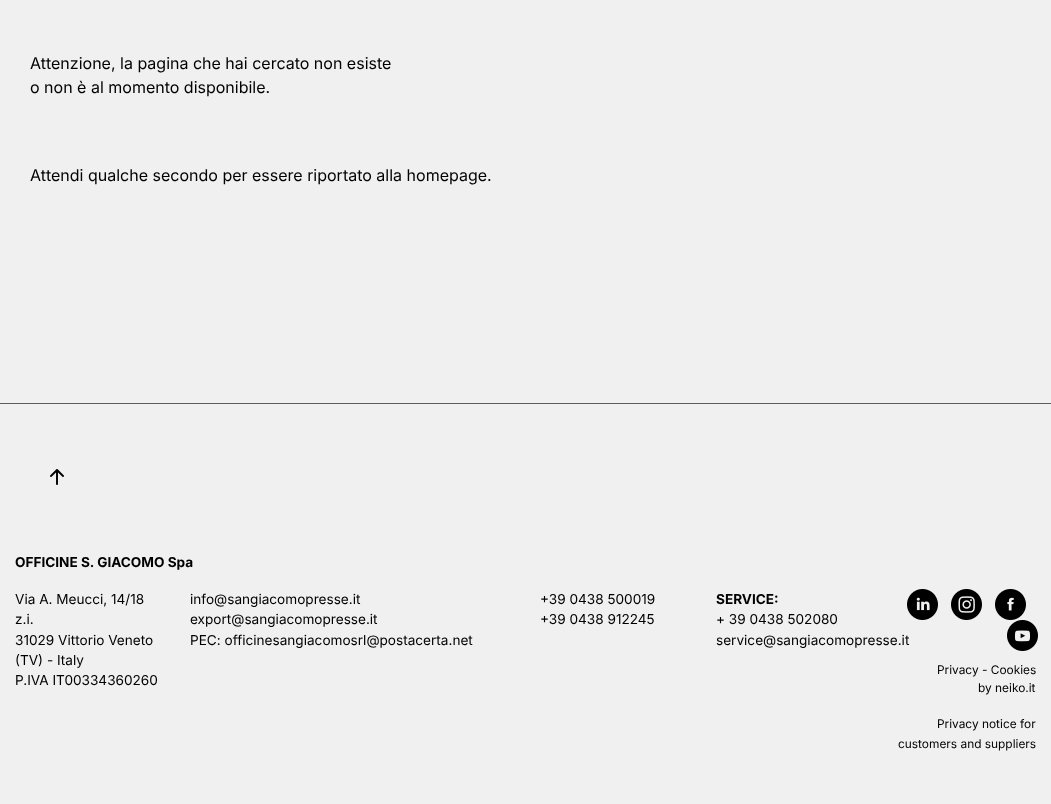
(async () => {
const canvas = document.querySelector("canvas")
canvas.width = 1051
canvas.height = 804
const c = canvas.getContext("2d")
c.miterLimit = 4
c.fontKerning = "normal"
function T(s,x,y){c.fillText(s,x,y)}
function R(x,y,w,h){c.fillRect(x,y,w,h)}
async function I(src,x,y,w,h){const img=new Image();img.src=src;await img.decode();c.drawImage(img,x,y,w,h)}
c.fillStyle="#f0f0f0"
R(0,0,1051,804)
c.font="16px Inter"
c.fillStyle="#000"
T("Attenzione, la pagina che hai cercato non esiste",30,69)
T("o non è al momento disponibile.",30,93)
T("Attendi qualche secondo per essere riportato alla homepage.",30,181)
c.fillStyle="#5d5d5d"
R(0,403,1051,1)
await I("1.png",50,469,14,16)
c.font="bold 13.6px Inter"
c.fillStyle="#000"
T("OFFICINE S. GIACOMO Spa",15,567)
c.font="13.6px Inter"
T("Via A. Meucci, 14/18",15,604)
T("z.i.",15,624)
T("31029 Vittorio Veneto",15,645)
T("(TV) - Italy",15,665)
T("P.IVA IT00334360260",15,685)
T("info@sangiacomopresse.it",190,604)
T("export@sangiacomopresse.it",190,624)
T("PEC: officinesangiacomosrl@postacerta.net",190,645)
T("+39 0438 500019",540,604)
T("+39 0438 912245",540,624)
c.font="bold 13.6px Inter"
T("SERVICE:",716,604)
c.font="13.6px Inter"
T("+ 39 0438 502080",716,624)
T("service@sangiacomopresse.it",716,645)
await I("2.png",907,589,31,31)
await I("3.png",951,589,31,31)
await I("4.png",995,589,31,31)
await I("5.png",1007,620,31,31)
c.font="11.9px Inter"
T("Privacy - Cookies",937,674)
T("by neiko.it",978,692)
T("Privacy notice for",937,728)
T("customers and suppliers",898,748)
})()
